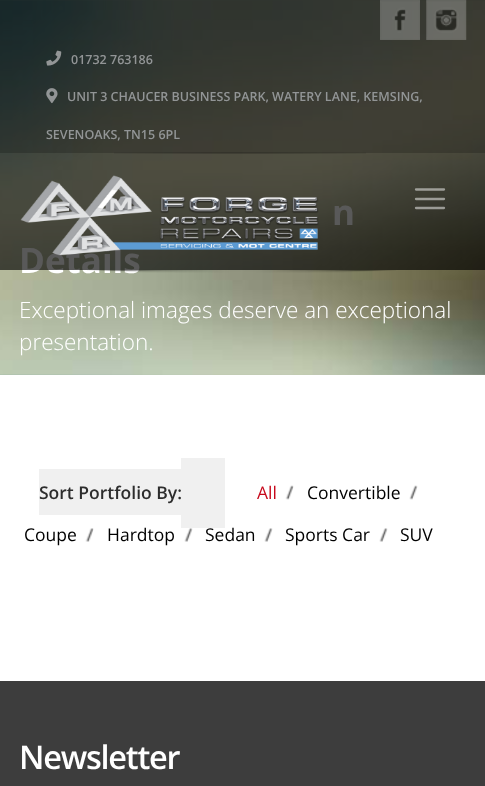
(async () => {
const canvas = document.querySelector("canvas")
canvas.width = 485
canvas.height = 786
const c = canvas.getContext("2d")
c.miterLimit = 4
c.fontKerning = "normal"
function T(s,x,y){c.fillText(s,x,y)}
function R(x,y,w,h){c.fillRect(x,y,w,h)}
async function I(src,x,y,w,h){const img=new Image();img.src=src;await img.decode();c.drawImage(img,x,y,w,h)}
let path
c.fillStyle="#fff"
R(0,0,485,786)
await I("8.png",0,0,485,375)
c.font="bold 35px Open Sans"
T("n",332,225)
T("Details",19,273)
c.fillStyle="#000000a6"
R(0,0,485,270)
c.fillStyle="#00000033"
R(0,0,485,153)
await I("1.png",380,0,40,40)
await I("2.png",426,0,41,40)
await I("3.png",46,50,16,16)
c.font="600 12.5px Open Sans"
c.fillStyle="#929596"
T("01732 763186",71,64)
await I("4.png",46,88,12,16)
T("UNIT 3 CHAUCER BUSINESS PARK, WATERY LANE, KEMSING,",67,101)
T("SEVENOAKS, TN15 6PL",46,139)
await I("5.png",114,152,252,2)
await I("6.png",20,175,299,81)
path = new Path2D("M416 189.5h28m-28 9.5h28m-28 9h28")
c.strokeStyle="#ffffff80"
c.lineWidth=2.3
c.lineCap="round"
c.stroke(path)
await I("7.png",87,270,309,3)
c.font="300 22.5px Open Sans"
c.fillStyle="#fff"
T("Exceptional images deserve an exceptional",19,318)
T("presentation.",19,350)
await I("9.png",285,485,9,15)
c.font="17.5px Open Sans"
c.fillStyle="#c7081b"
T("All",257,499)
await I("10.png",409,485,9,15)
c.fillStyle="#000"
T("Convertible",307,499)
await I("11.png",85,528,9,14)
T("Coupe",24,541)
await I("12.png",184,528,9,14)
T("Hardtop",107,541)
await I("12.png",264,528,9,14)
T("Sedan",205,541)
await I("12.png",379,528,9,14)
T("Sports Car",285,541)
T("SUV",400,541)
c.fillStyle="#f0f0f0"
R(39,469,142,46)
c.font="600 17.5px Open Sans"
c.fillStyle="#2d2d2d"
T("Sort Portfolio By:",39,499)
c.fillStyle="#f0f0f0"
R(181,458,44,70)
c.fillStyle="#3d3d3d"
R(0,681,485,105)
c.letterSpacing="-1.25px"
c.font="600 32.5px Open Sans"
c.fillStyle="#fff"
T("Newsletter",19,769)
})()
